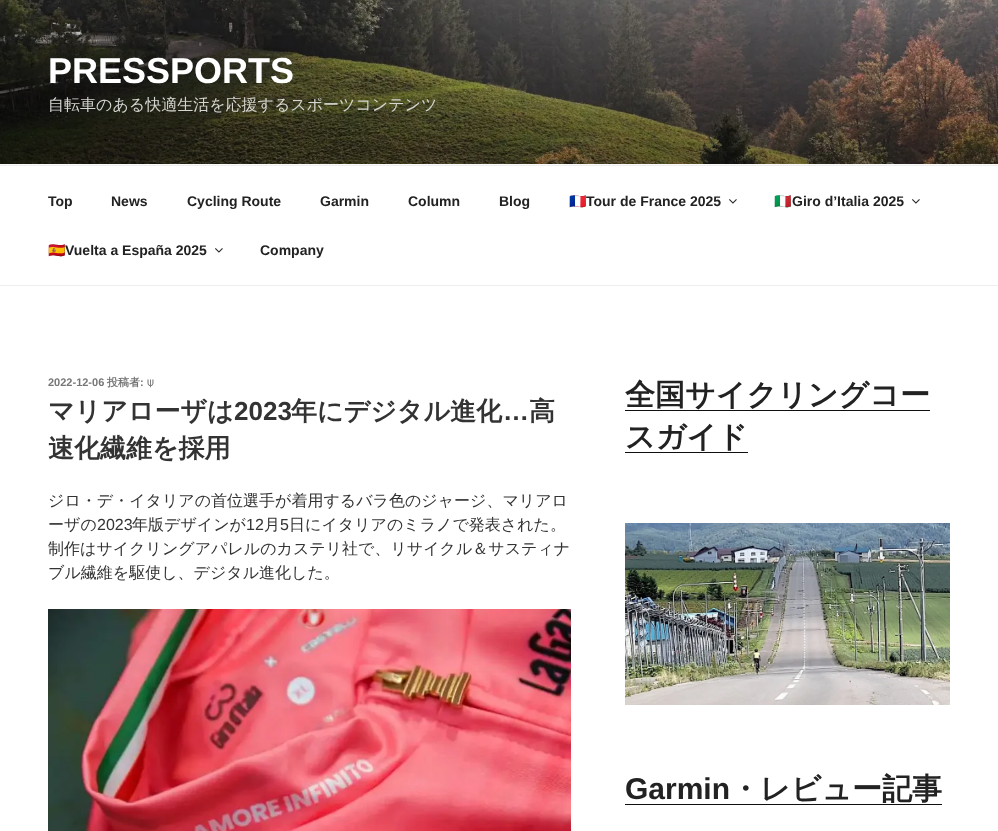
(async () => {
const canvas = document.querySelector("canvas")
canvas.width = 998
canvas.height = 831
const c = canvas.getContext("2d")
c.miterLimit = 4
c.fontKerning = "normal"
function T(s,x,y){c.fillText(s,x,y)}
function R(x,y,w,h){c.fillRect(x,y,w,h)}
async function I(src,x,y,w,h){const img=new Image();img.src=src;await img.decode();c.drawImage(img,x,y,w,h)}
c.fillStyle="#fff"
R(0,0,998,831)
c.fillStyle="#fafafa"
R(0,164,998,1)
await I("1.png",0,0,998,164)
c.font="bold 36px Liberation Sans"
c.fillStyle="#fff"
T("PRESSPORTS",48,83)
c.font="500 16px WenQuanYi Zen Hei"
c.fillStyle="#d5d5d1"
T("自転車のある快適生活を応援するスポーツコンテンツ",48,110)
c.fillStyle="#eee"
R(0,165,998,1)
R(0,285,998,1)
c.font="bold 14px Liberation Sans"
c.fillStyle="#222"
T("Top",48,206)
T("News",111,206)
T("Cycling Route",187,206)
T("Garmin",320,206)
T("Column",408,206)
T("Blog",499,206)
c.font="bold 14px Noto Color Emoji"
T("🇫🇷",569,206)
c.font="bold 14px Liberation Sans"
T("Tour de France 2025",586,206)
await I("2.png",729,199,8,5)
c.font="bold 14px Noto Color Emoji"
T("🇮🇹",774,206)
c.font="bold 14px Liberation Sans"
T("Giro d’Italia 2025",792,206)
await I("2.png",912,199,8,5)
c.font="bold 14px Noto Color Emoji"
T("🇪🇸",48,255)
c.font="bold 14px Liberation Sans"
T("Vuelta a España 2025",65,255)
await I("2.png",215,248,8,5)
T("Company",260,255)
c.font="bold 11px Liberation Sans"
c.fillStyle="#767676"
T("2022-12-06",48,386)
c.font="bold 11px WenQuanYi Zen Hei"
T("投稿者",107,386)
c.font="bold 11px Liberation Sans"
T(":",140,386)
c.font="bold 11px FreeSerif"
T("⍦",147,386)
c.font="bold 26px WenQuanYi Zen Hei"
c.fillStyle="#333"
T("マリアローザは",48,420)
c.font="bold 26px Liberation Sans"
T("2023",234,420)
c.font="bold 26px WenQuanYi Zen Hei"
T("年にデジタル進化",291,420)
c.font="bold 26px Liberation Sans"
T("…",503,420)
c.font="bold 26px WenQuanYi Zen Hei"
T("高",529,420)
T("速化繊維を採用",48,457)
c.font="500 16px WenQuanYi Zen Hei"
T("ジロ・デ・イタリアの首位選手が着用するバラ色のジャージ、マリアロ",48,506)
T("ーザの",48,530)
c.font="16px Liberation Sans"
T("2023",97,530)
c.font="500 16px WenQuanYi Zen Hei"
T("年版デザインが",132,530)
c.font="16px Liberation Sans"
T("12",246,530)
c.font="500 16px WenQuanYi Zen Hei"
T("月",264,530)
c.font="16px Liberation Sans"
T("5",280,530)
c.font="500 16px WenQuanYi Zen Hei"
T("日にイタリアのミラノで発表された。",289,530)
T("制作はサイクリングアパレルのカステリ社で、リサイクル＆サスティナ",48,554)
T("ブル繊維を駆使し、デジタル進化した。",48,578)
await I("3.png",48,609,523,222)
c.font="bold 30px WenQuanYi Zen Hei"
c.fillStyle="#222"
T("全国サイクリングコー",625,405)
c.fillStyle="#0f0f0f"
R(625,410,305,1)
c.fillStyle="#222"
T("スガイド",625,447)
c.fillStyle="#0f0f0f"
R(625,452,123,1)
await I("4.png",625,523,325,182)
c.font="bold 30px Liberation Sans"
c.fillStyle="#222"
T("Garmin",625,799)
c.fillStyle="#0f0f0f"
R(625,804,317,1)
c.font="bold 30px WenQuanYi Zen Hei"
c.fillStyle="#222"
T("・レビュー記事",730,799)
})()
